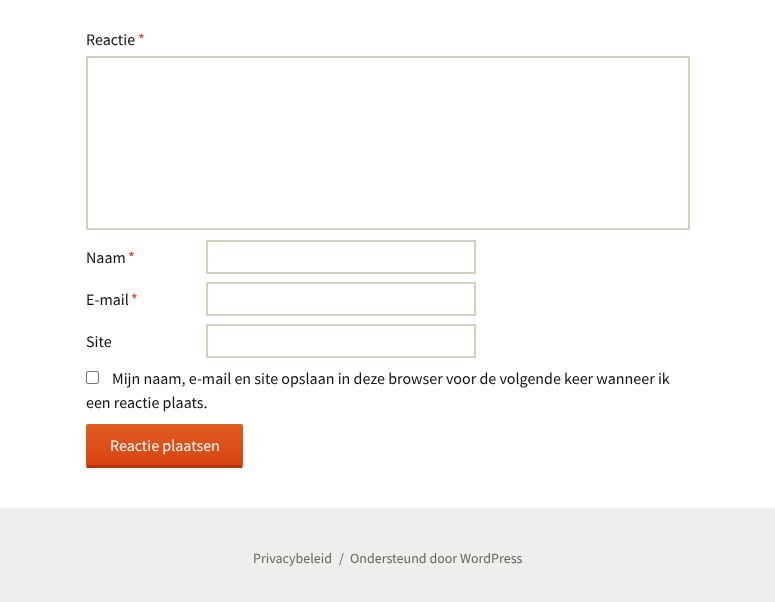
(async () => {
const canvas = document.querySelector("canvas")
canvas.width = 775
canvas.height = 602
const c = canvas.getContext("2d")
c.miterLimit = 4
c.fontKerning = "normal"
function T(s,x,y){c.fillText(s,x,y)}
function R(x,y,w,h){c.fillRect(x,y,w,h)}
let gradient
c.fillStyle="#fff"
R(0,0,775,602)
c.font="16px Source Sans Pro"
c.fillStyle="#141412"
T("Reactie",86,45)
c.fillStyle="#ed331c"
T("*",138,45)
c.strokeStyle="#d4d0ba"
c.lineWidth=2
c.strokeRect(87,57,602,172)
c.fillStyle="#141412"
T("Naam",86,263)
c.fillStyle="#ed331c"
T("*",128,263)
c.strokeRect(207,241,268,32)
c.fillStyle="#141412"
T("E-mail",86,305)
c.fillStyle="#ed331c"
T("*",131,305)
c.strokeRect(207,283,268,32)
c.fillStyle="#141412"
T("Site",86,347)
c.strokeRect(207,325,268,32)
c.beginPath()
c.roundRect(86.5,371.5,12,12,1.5)
c.strokeStyle="#767676"
c.lineWidth=1
c.stroke()
T("Mijn naam, e-mail en site opslaan in deze browser voor de volgende keer wanneer ik",112,384)
T("een reactie plaats.",86,408)
gradient = c.createLinearGradient(165,424,165,465)
gradient.addColorStop(0,"#e05d22")
gradient.addColorStop(1,"#d94412")
c.fillStyle = gradient
c.beginPath()
c.roundRect(86,424,157,41,[2,2,0,0])
c.fill()
gradient = c.createLinearGradient(165,465,165,506)
gradient.addColorStop(0,"#e05d22")
gradient.addColorStop(1,"#d94412")
c.fillStyle = gradient
c.beginPath()
c.roundRect(86,465,157,3,[0,0,2,2])
c.fill()
c.fillStyle="#b93207"
R(87,465,155,3)
c.fillStyle="#fff"
T("Reactie plaatsen",110,451)
c.fillStyle="#eee"
R(0,508,775,94)
c.font="14px Source Sans Pro"
c.fillStyle="#686758"
T("Privacybeleid",253,563)
T("/",339,563)
T("Ondersteund door WordPress",350,563)
})()
